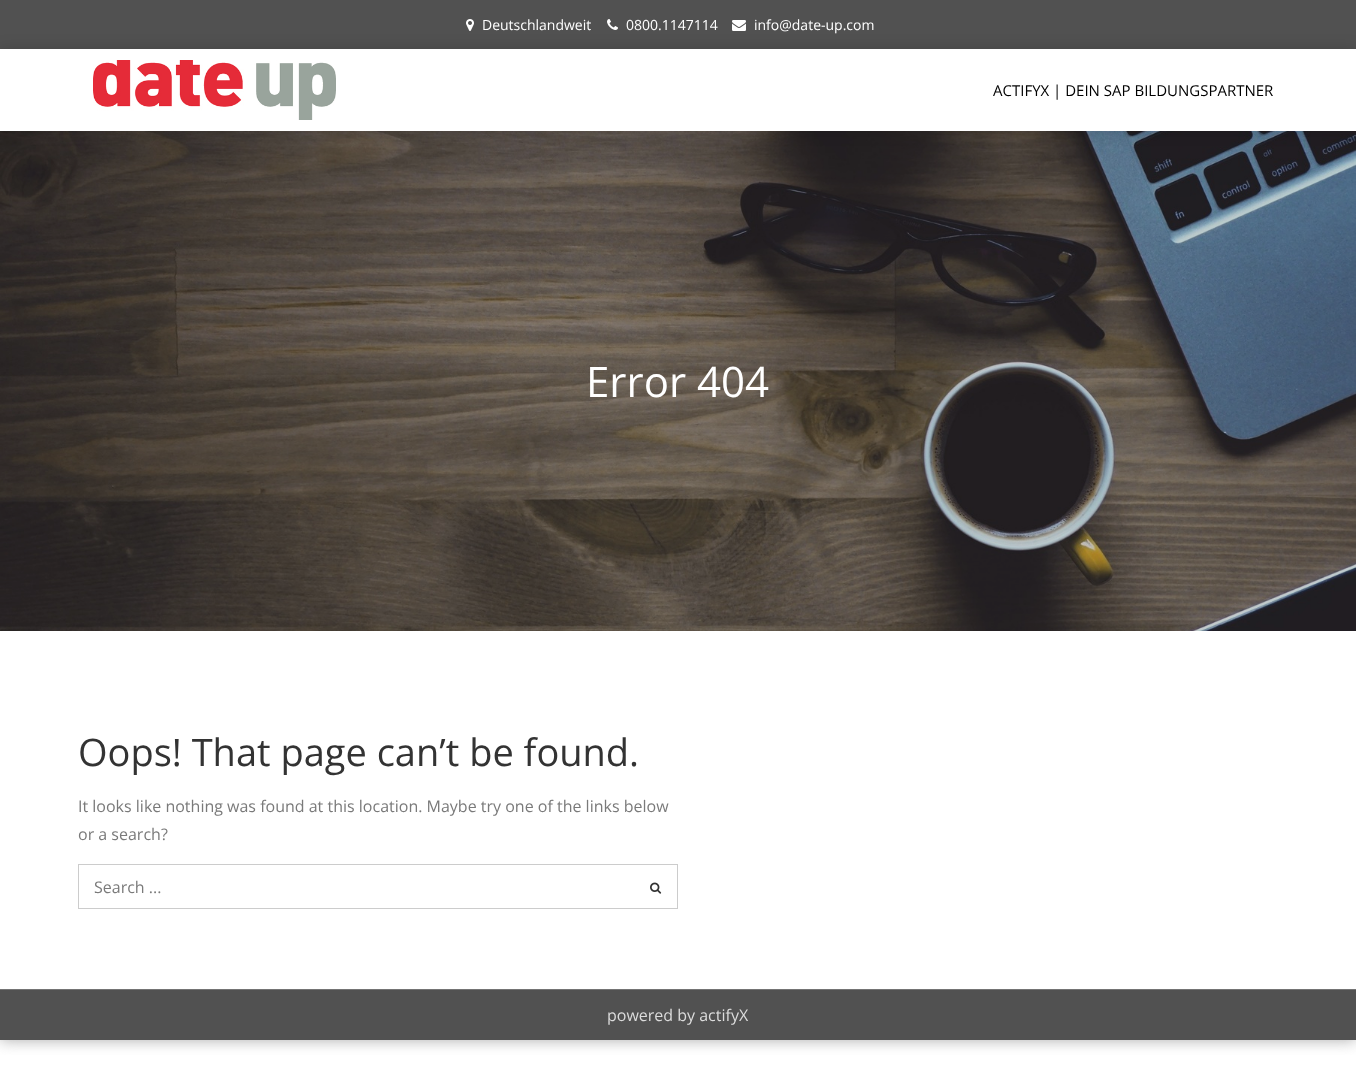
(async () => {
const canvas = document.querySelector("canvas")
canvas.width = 1356
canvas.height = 1090
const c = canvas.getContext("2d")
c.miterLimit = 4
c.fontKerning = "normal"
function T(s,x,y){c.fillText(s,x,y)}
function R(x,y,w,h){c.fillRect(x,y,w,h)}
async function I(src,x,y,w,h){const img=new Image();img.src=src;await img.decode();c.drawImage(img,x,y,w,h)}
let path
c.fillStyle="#fff"
R(0,0,1356,1090)
c.save()
c.beginPath()
c.rect(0,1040,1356,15)
c.clip()
c.fillStyle="#aaa"
c.filter="blur(7.5px)"
c.beginPath()
c.rect(0,0,1356,1040)
c.fill()
c.filter="none"
c.restore()
c.fillStyle="#515151"
R(0,0,1356,49)
await I("1.png",466,19,8,12)
c.font="14px Open Sans"
c.fillStyle="#fff"
T("Deutschlandweit",482,30)
await I("2.png",607,19,11,11)
T("0800.1147114",626,30)
await I("3.png",732,20,14,11)
T("info@date-up.com",754,30)
await I("5.png",0,131,1356,500)
c.save()
path = new Path2D("M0 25h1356v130h-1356zm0 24h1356v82h-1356z")
c.clip(path,"evenodd")
c.fillStyle="#00000026"
c.filter="blur(7.5px)"
c.beginPath()
c.rect(0,49,1356,82)
c.fill()
c.filter="none"
c.restore()
await I("4.png",93,60,243,60)
c.font="15px Open Sans"
c.fillStyle="#000"
T("ACTIFYX | DEIN SAP BILDUNGSPARTNER",993,96)
c.font="42px Open Sans"
c.fillStyle="#fff"
T("Error 404",586,397)
c.font="38px Open Sans"
c.fillStyle="#333"
T("Oops! That page can’t be found.",78,766)
c.font="16px Open Sans"
c.fillStyle="#7a7a7a"
T("It looks like nothing was found at this location. Maybe try one of the links below",78,812)
T("or a search?",78,840)
c.strokeStyle="#ccc"
c.strokeRect(78.5,864.5,599,44)
T("Search ...",94,893)
await I("6.png",650,882,12,12)
c.fillStyle="#515151"
R(0,990,1356,50)
c.fillStyle="#747474"
R(0,989,1356,1)
c.fillStyle="#dcdcdc"
T("powered by actifyX",607,1021)
})()
